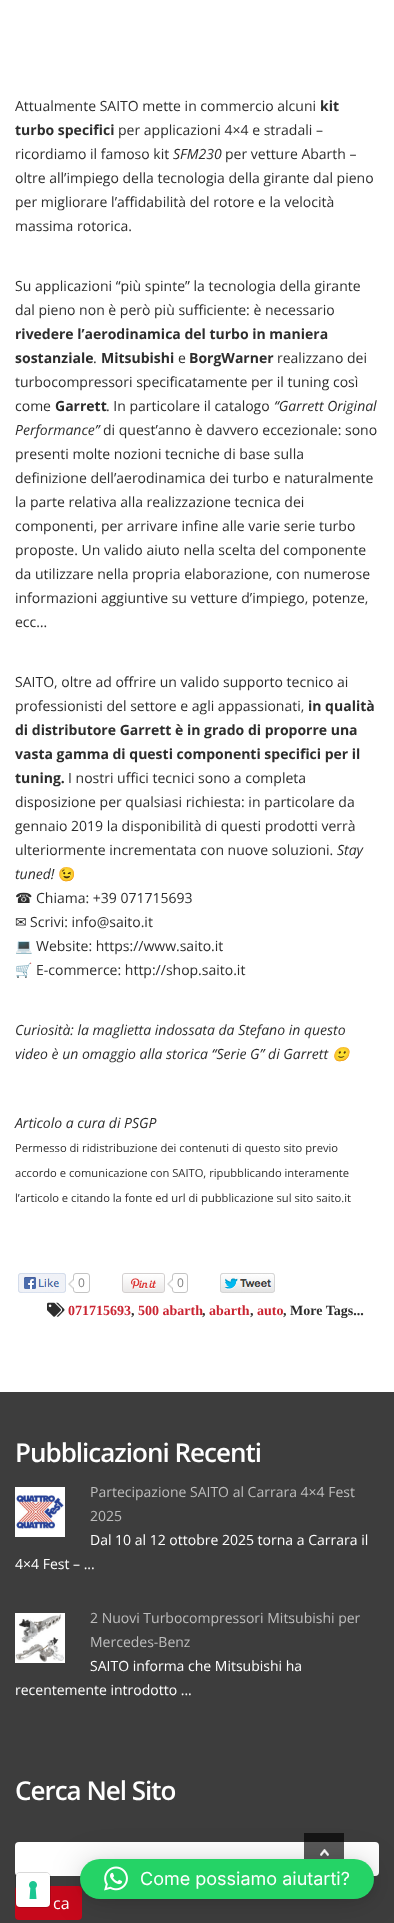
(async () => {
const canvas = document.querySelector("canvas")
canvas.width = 394
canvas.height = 1923
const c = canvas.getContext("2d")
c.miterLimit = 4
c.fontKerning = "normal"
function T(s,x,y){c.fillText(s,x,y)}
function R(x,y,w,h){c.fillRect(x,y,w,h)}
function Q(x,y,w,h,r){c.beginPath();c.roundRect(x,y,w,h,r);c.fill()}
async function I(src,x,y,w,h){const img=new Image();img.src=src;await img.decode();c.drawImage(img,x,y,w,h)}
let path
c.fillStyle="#fff"
R(0,0,394,1923)
c.font="14px Open Sans"
c.fillStyle="#2d2d2d"
T("Attualmente SAITO mette in commercio alcuni",15,111)
c.font="bold 14px Open Sans"
T("kit",320,111)
T("turbo specifici",15,135)
c.font="14px Open Sans"
T("per applicazioni 4×4 e stradali –",118,135)
T("ricordiamo il famoso kit",15,159)
c.font="italic 14px Open Sans"
T("SFM230",173,159)
c.font="14px Open Sans"
T("per vetture Abarth –",225,159)
T("oltre all’impiego della tecnologia della girante dal pieno",15,183)
T("per migliorare l’affidabilità del rotore e la velocità",15,207)
T("massima rotorica.",15,231)
T("Su applicazioni “più spinte” la tecnologia della girante",15,291)
T("dal pieno non è però più sufficiente: è necessario",15,315)
c.font="bold 14px Open Sans"
T("rivedere l’aerodinamica del turbo in maniera",15,339)
T("sostanziale",15,363)
c.font="14px Open Sans"
T(".",93,363)
c.font="bold 14px Open Sans"
T("Mitsubishi",101,363)
c.font="14px Open Sans"
T("e",178,363)
c.font="bold 14px Open Sans"
T("BorgWarner",189,363)
c.font="14px Open Sans"
T("realizzano dei",277,363)
T("turbocompressori specificatamente per il tuning così",15,387)
T("come",15,411)
c.font="bold 14px Open Sans"
T("Garrett",55,411)
c.font="14px Open Sans"
T(". In particolare il catalogo",106,411)
c.font="italic 14px Open Sans"
T("“Garrett Original",274,411)
T("Performance”",15,435)
c.font="14px Open Sans"
T("di quest’anno è davvero eccezionale: sono",103,435)
T("presenti molte nozioni tecniche di base sulla",15,459)
T("definizione dell’aerodinamica dei turbo e naturalmente",15,483)
T("la parte relativa alla realizzazione tecnica dei",15,507)
T("componenti, per arrivare infine alle varie serie turbo",15,531)
T("proposte. Un valido aiuto nella scelta del componente",15,555)
T("da utilizzare nella propria elaborazione, con numerose",15,579)
T("informazioni aggiuntive su vetture d’impiego, potenze,",15,603)
T("ecc…",15,627)
T("SAITO, oltre ad offrire un valido supporto tecnico ai",15,687)
T("professionisti del settore e agli appassionati,",15,711)
c.font="bold 14px Open Sans"
T("in qualità",308,711)
T("di distributore Garrett è in grado di proporre una",15,735)
T("vasta gamma di questi componenti specifici per il",15,759)
T("tuning.",15,783)
c.font="14px Open Sans"
T("I nostri uffici tecnici sono a completa",68,783)
T("disposizione per qualsiasi richiesta: in particolare da",15,807)
T("gennaio 2019 la disponibilità di questi prodotti verrà",15,831)
T("ulteriormente incrementata con nuove soluzioni.",15,855)
c.font="italic 14px Open Sans"
T("Stay",337,855)
T("tuned!",15,879)
c.font="14px Noto Color Emoji"
T("😉",58,879)
c.font="14px DejaVu Sans"
T("☎",15,903)
c.font="14px Open Sans"
T("Chiama: +39 071715693",36,903)
c.font="14px DejaVu Sans"
T("✉",15,927)
c.font="14px Open Sans"
T("Scrivi: info@saito.it",30,927)
c.font="14px Noto Color Emoji"
T("💻",15,951)
c.font="14px Open Sans"
T("Website: https://www.saito.it",36,951)
c.font="14px Noto Color Emoji"
T("🛒",15,975)
c.font="14px Open Sans"
T("E-commerce: http://shop.saito.it",36,975)
c.font="italic 14px Open Sans"
T("Curiosità: la maglietta indossata da Stefano in questo",15,1035)
T("video è un omaggio alla storica “Serie G” di Garrett",15,1059)
c.font="italic 14px Noto Color Emoji"
T("🙂",332,1059)
c.font="italic 14px Open Sans"
T("Articolo a cura di PSGP",15,1128)
c.font="11.2px Open Sans"
T("Permesso di ridistribuzione dei contenuti di questo sito previo",15,1152)
T("accordo e comunicazione con SAITO, ripubblicando interamente",15,1177)
T("l’articolo e citando la fonte ed url di pubblicazione sul sito saito.it",15,1202)
await I("1.png",18,1273,48,20)
c.beginPath()
c.roundRect(73.5,1273.5,16,19,2.5)
c.strokeStyle="#c4c4c4"
c.stroke()
c.fillStyle="#d6d6d6"
path = new Path2D("M73 1279v10l-5-5z")
c.fill(path)
c.font="12px Open Sans"
c.fillStyle="#808080"
T("0",78,1287)
c.fillStyle="#fff"
path = new Path2D("M75 1279v10l-5-5z")
c.fill(path)
await I("2.png",122,1273,43,20)
c.beginPath()
c.roundRect(172.5,1273.5,15,19,2.5)
c.stroke()
c.fillStyle="#d6d6d6"
path = new Path2D("M172 1279v10l-5-5z")
c.fill(path)
c.fillStyle="#808080"
T("0",177,1287)
c.fillStyle="#fff"
path = new Path2D("M174 1279v10l-5-5z")
c.fill(path)
await I("3.png",220,1273,55,20)
await I("4.png",47,1302,18,15)
c.font="bold 14px Liberation Serif"
c.fillStyle="#ca2532"
T("071715693",68,1315)
c.fillStyle="#2d2d2d"
T(",",131,1315)
c.fillStyle="#ca2532"
T("500 abarth",138,1315)
c.fillStyle="#2d2d2d"
T(",",202,1315)
c.fillStyle="#ca2532"
T("abarth",209,1315)
c.fillStyle="#2d2d2d"
T(",",250,1315)
c.fillStyle="#ca2532"
T("auto",257,1315)
c.fillStyle="#2d2d2d"
T(", More Tags...",283,1315)
c.fillStyle="#3d3d3d"
R(0,1392,394,531)
c.fillStyle="#151515"
R(304,1833,40,9)
c.letterSpacing="-1px"
c.font="600 26px Open Sans"
c.fillStyle="#fff"
T("Pubblicazioni Recenti",15,1462)
await I("5.png",15,1487,50,50)
c.letterSpacing="0px"
c.font="14px Open Sans"
c.fillStyle="#bebebe"
T("Partecipazione SAITO al Carrara 4×4 Fest",90,1497)
T("2025",90,1521)
c.fillStyle="#fff"
T("Dal 10 al 12 ottobre 2025 torna a Carrara il",90,1545)
T("4×4 Fest – ...",15,1569)
await I("6.png",15,1613,50,50)
c.fillStyle="#bebebe"
T("2 Nuovi Turbocompressori Mitsubishi per",90,1623)
T("Mercedes-Benz",90,1647)
c.fillStyle="#fff"
T("SAITO informa che Mitsubishi ha",90,1671)
T("recentemente introdotto ...",15,1695)
c.letterSpacing="-1px"
c.font="600 26px Open Sans"
T("Cerca Nel Sito",15,1800)
Q(15,1842,364,34,4)
c.fillStyle="#595959"
R(304,1842,40,17)
c.fillStyle="#c7081b"
Q(15,1886,67,34,4)
c.letterSpacing="0px"
c.font="16px Open Sans"
c.fillStyle="#fff"
T("ca",53,1909)
await I("7.png",320,1849,9,7)
c.fillStyle="#00000029"
c.filter="blur(16px)"
c.beginPath()
c.roundRect(80,1861,294,40,20)
c.fill()
c.filter="none"
c.beginPath()
c.roundRect(15.5,1872.5,35,35,4.5)
c.strokeStyle="#00000026"
c.stroke()
c.fillStyle="#fff"
Q(16,1873,34,34,4)
await I("8.png",29,1881,8,18)
c.fillStyle="#0000000f"
c.filter="blur(3px)"
c.beginPath()
c.roundRect(80,1860,294,40,20)
c.fill()
c.filter="none"
c.fillStyle="#25d366"
Q(80,1859,294,40,20)
await I("9.png",104,1866,24,25)
c.font="18px Inter"
c.fillStyle="#fff"
T("Come possiamo aiutarti?",140,1885)
})()
